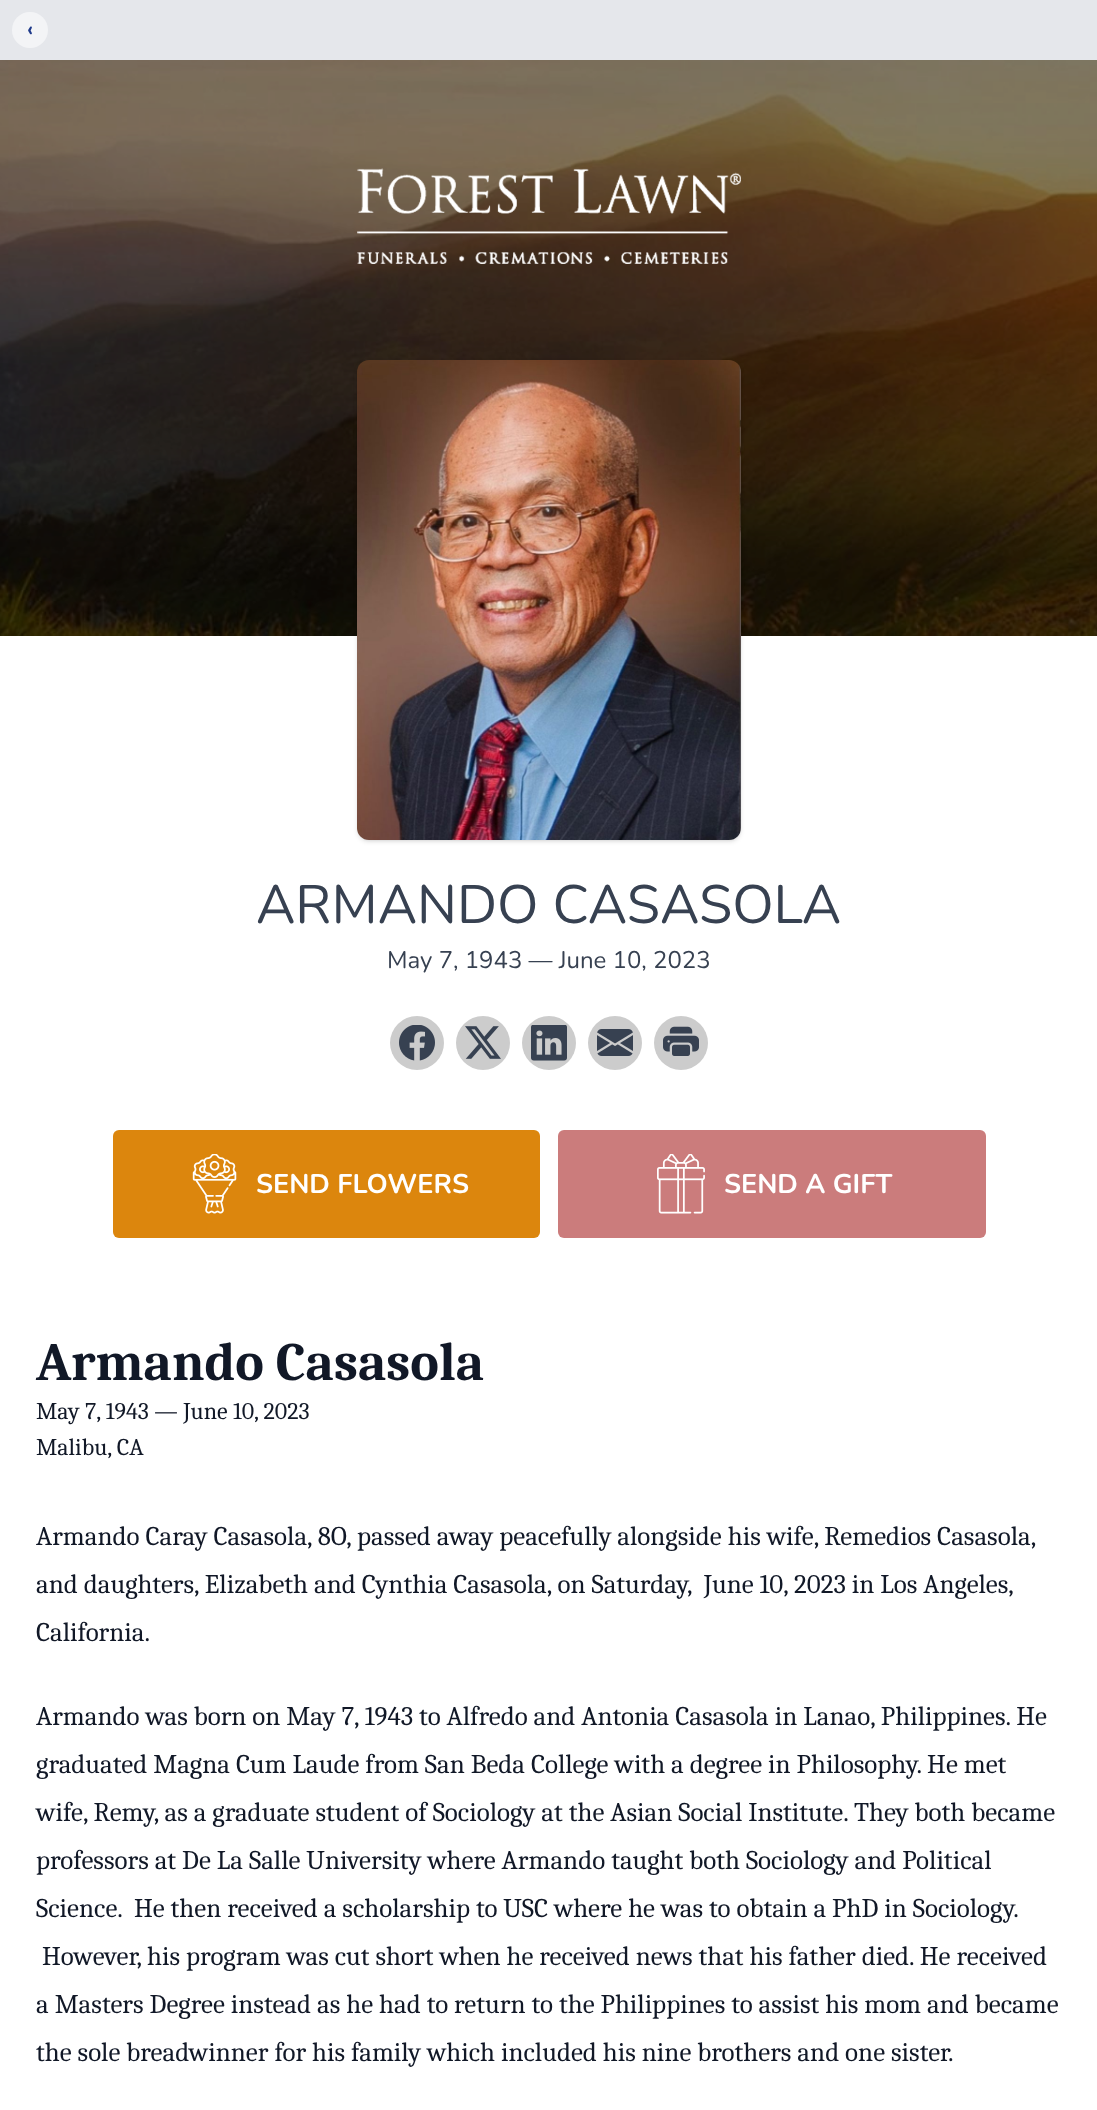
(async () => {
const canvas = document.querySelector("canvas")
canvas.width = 1097
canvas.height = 2110
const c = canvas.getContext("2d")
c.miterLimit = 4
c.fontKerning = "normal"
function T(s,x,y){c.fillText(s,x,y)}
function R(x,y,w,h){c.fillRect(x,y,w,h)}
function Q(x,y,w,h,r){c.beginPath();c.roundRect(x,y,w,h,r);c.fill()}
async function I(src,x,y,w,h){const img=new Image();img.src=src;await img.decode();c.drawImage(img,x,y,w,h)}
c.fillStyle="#fff"
R(0,0,1097,2110)
c.fillStyle="#e5e7eb"
R(0,0,1097,60)
c.fillStyle="#f3f4f6"
c.beginPath()
c.arc(30,30,18,0,7)
c.fill()
c.font="bold 21px Nunito"
c.fillStyle="#1e3a8a"
T("‹",27,36)
await I("1.png",0,60,1097,576)
await I("2.png",357,168,384,96)
c.fillStyle="#0000001a"
c.filter="blur(1.5px)"
c.beginPath()
c.roundRect(359,363,381,477,11)
c.fill()
c.filter="none"
c.filter="blur(2px)"
c.beginPath()
c.roundRect(357,362,384,480,12)
c.fill()
c.filter="none"
await I("3.png",357,360,384,480)
c.font="54px Nunito"
c.fillStyle="#374151"
T("ARMANDO CASASOLA",256,923)
c.font="24px Nunito"
T("May 7, 1943 — June 10, 2023",387,968)
c.fillStyle="#ccc"
c.beginPath()
c.arc(417,1043,27,0,7)
c.fill()
await I("4.png",399,1025,36,36)
c.beginPath()
c.arc(483,1043,27,0,7)
c.fill()
await I("5.png",465,1026,36,33)
c.beginPath()
c.arc(549,1043,27,0,7)
c.fill()
await I("6.png",531,1025,36,36)
c.beginPath()
c.arc(615,1043,27,0,7)
c.fill()
await I("7.png",597,1029,36,27)
c.beginPath()
c.arc(681,1043,27,0,7)
c.fill()
await I("8.png",663,1026,36,30)
c.fillStyle="#dc860d"
Q(113,1130,427,108,6)
await I("9.png",192,1154,45,60)
c.font="bold 27px Nunito"
c.fillStyle="#fff"
T("SEND FLOWERS",256,1193)
c.fillStyle="#cb7c7c"
Q(558,1130,428,108,6)
await I("10.png",657,1154,48,60)
c.fillStyle="#fff"
T("SEND A GIFT",724,1193)
c.font="bold 54px Caladea"
c.fillStyle="#111827"
T("Armando Casasola",36,1380)
c.font="24px Caladea"
T("May 7, 1943 — June 10, 2023",36,1419)
T("Malibu, CA",36,1455)
c.font="27px Caladea"
T("Armando Caray Casasola, 8O, passed away peacefully alongside his wife, Remedios Casasola,",36,1545)
T("and daughters, Elizabeth and Cynthia Casasola, on Saturday,  June 10, 2023 in Los Angeles,",36,1593)
T("California.",36,1641)
T("Armando was born on May 7, 1943 to Alfredo and Antonia Casasola in Lanao, Philippines. He",36,1725)
T("graduated Magna Cum Laude from San Beda College with a degree in Philosophy. He met",36,1773)
T("wife, Remy, as a graduate student of Sociology at the Asian Social Institute. They both became",36,1821)
T("professors at De La Salle University where Armando taught both Sociology and Political",36,1869)
T("Science.  He then received a scholarship to USC where he was to obtain a PhD in Sociology.",36,1917)
T("However, his program was cut short when he received news that his father died. He received",42,1965)
T("a Masters Degree instead as he had to return to the Philippines to assist his mom and became",36,2013)
T("the sole breadwinner for his family which included his nine brothers and one sister.",36,2061)
})()
